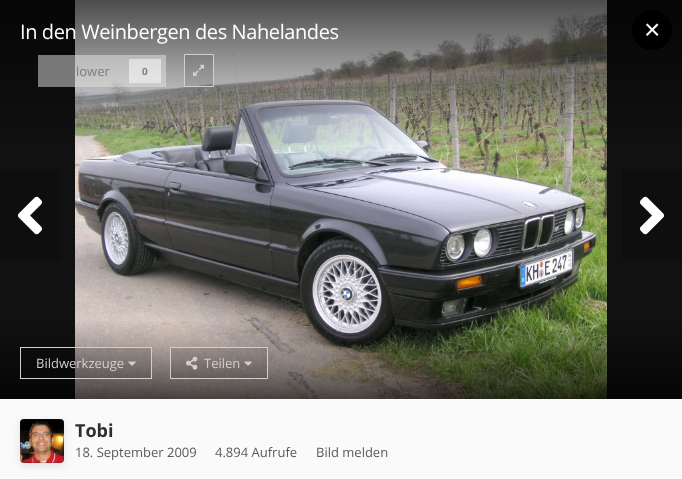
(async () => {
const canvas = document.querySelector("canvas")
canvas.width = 682
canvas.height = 479
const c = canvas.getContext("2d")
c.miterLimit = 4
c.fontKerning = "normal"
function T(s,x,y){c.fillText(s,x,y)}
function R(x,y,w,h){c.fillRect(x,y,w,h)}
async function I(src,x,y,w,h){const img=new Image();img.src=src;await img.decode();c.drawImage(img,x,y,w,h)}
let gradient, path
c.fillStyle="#111"
R(0,0,682,479)
await I("1.png",75,0,532,399)
gradient = c.createLinearGradient(341,0,341,150)
gradient.addColorStop(0,"#000000b3")
gradient.addColorStop(1,"#00000000")
c.fillStyle = gradient
R(0,0,682,145)
c.letterSpacing="-0.4px"
c.font="20px Open Sans"
c.fillStyle="#fff"
T("In den Weinbergen des Nahelandes",20,39)
c.fillStyle="#e5e5e580"
R(38,55,128,32)
c.letterSpacing="0px"
c.font="13px Open Sans"
c.fillStyle="#797c7e"
T("lower",76,76)
c.fillStyle="#ffffff80"
R(129,59,32,24)
c.font="bold 10px Open Sans"
c.fillStyle="#828282"
T("0",142,75)
c.fillStyle="#0000001a"
c.beginPath()
c.rect(184.5,54.5,29,32)
c.fill()
c.strokeStyle="#d0d0d0"
c.stroke()
await I("2.png",193,64,12,12)
gradient = c.createLinearGradient(341,319,341,399)
gradient.addColorStop(0,"#00000000")
gradient.addColorStop(1,"#000000b3")
c.fillStyle = gradient
R(0,321,682,78)
c.fillStyle="#0000001a"
R(75,348,76,30)
c.strokeRect(20.5,347.5,131,31)
c.font="13px Open Sans"
c.fillStyle="#d0d0d0"
T("Bildwerkzeuge",36,368)
await I("3.png",128,361,8,5)
c.fillStyle="#0000001a"
c.beginPath()
c.rect(170.5,347.5,97,31)
c.fill()
c.stroke()
await I("4.png",186,356,12,14)
c.fillStyle="#d0d0d0"
T("Teilen",204,368)
await I("5.png",244,361,8,5)
c.fillStyle="#0e0e0e"
R(0,170,60,90)
await I("6.png",17,196,26,39)
R(622,170,60,90)
await I("7.png",639,196,26,39)
c.fillStyle="#fafafa"
R(0,399,682,80)
await I("8.png",20,419,44,44)
c.save()
path = new Path2D("M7 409h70v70h-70zm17 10h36c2 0 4 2 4 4v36c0 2-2 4-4 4h-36c-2 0-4-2-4-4v-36c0-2 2-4 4-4z")
c.clip(path,"evenodd")
c.fillStyle="#0000001a"
c.filter="blur(4px)"
c.beginPath()
c.roundRect(20,422,44,44,4)
c.fill()
c.filter="none"
c.restore()
c.beginPath()
c.roundRect(20.5,419.5,43,43,3.5)
c.strokeStyle="#2222224d"
c.stroke()
c.font="bold 18px Open Sans"
c.fillStyle="#2e2e2e"
T("Tobi",75,437)
c.font="13px Open Sans"
c.fillStyle="#5b5b5b"
T("18. September 2009",75,457)
T("4.894 Aufrufe",215,457)
T("Bild melden",316,457)
c.fillStyle="#000"
c.beginPath()
c.arc(652,30,20,0,7)
c.fill()
c.font="28px Liberation Sans"
c.fillStyle="#fff"
T("×",644,39)
})()
